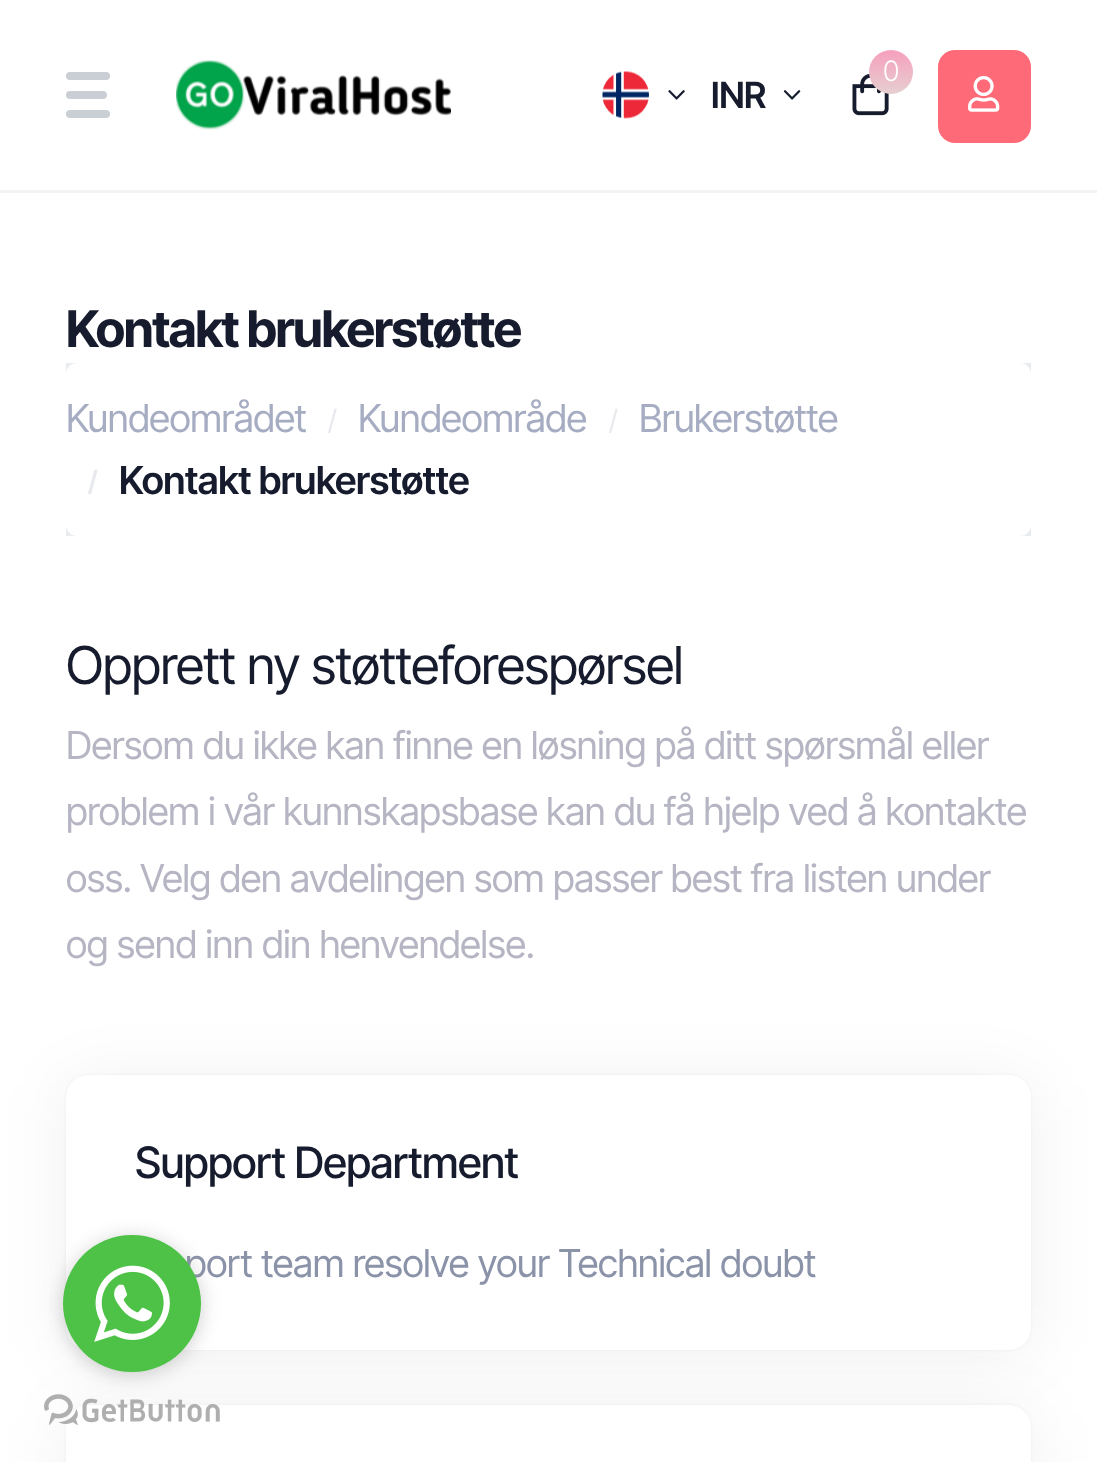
(async () => {
const canvas = document.querySelector("canvas")
canvas.width = 1097
canvas.height = 1462
const c = canvas.getContext("2d")
c.miterLimit = 4
c.fontKerning = "normal"
function T(s,x,y){c.fillText(s,x,y)}
function R(x,y,w,h){c.fillRect(x,y,w,h)}
function Q(x,y,w,h,r){c.beginPath();c.roundRect(x,y,w,h,r);c.fill()}
async function I(src,x,y,w,h){const img=new Image();img.src=src;await img.decode();c.drawImage(img,x,y,w,h)}
let gradient
c.fillStyle="#fff"
R(0,0,1097,1462)
c.fillStyle="#f3f3f3"
R(0,190,1097,3)
c.fillStyle="#c9cfd5"
Q(66,91,41,8,4)
Q(66,72,44,8,4)
Q(66,110,44,8,4)
await I("1.png",176,60,275,70)
await I("2.png",602,71,47,48)
await I("3.png",668,90,17,10)
c.letterSpacing="-0.4px"
c.font="600 36px Inter Tight"
c.fillStyle="#161c2d"
T("INR",711,108)
await I("4.png",783,90,18,10)
await I("5.png",852,74,37,42)
gradient = c.createLinearGradient(891,94,891,50)
gradient.addColorStop(0,"#e6cfd1")
gradient.addColorStop(1,"#f69fbd")
c.fillStyle = gradient
c.beginPath()
c.arc(891,72,22,0,7)
c.fill()
c.font="300 28px Inter Tight"
c.fillStyle="#fff"
T("0",883,81)
c.fillStyle="#ff6a78"
Q(938,50,93,93,17)
await I("6.png",968,76,32,36)
c.letterSpacing="-1.4px"
c.font="bold 50.5px Inter Tight"
c.fillStyle="#161c2d"
T("Kontakt brukerstøtte",66,347)
c.fillStyle="#e9ecef"
R(66,363,965,173)
c.fillStyle="#fff"
Q(66,363,965,173,11)
c.letterSpacing="-0.4px"
c.font="38.5px Inter Tight"
c.fillStyle="#a6adc2"
T("Kundeområdet",66,432)
c.font="28px Inter Tight"
c.fillStyle="#e7e9ed"
T("/",328,430)
c.font="38.5px Inter Tight"
c.fillStyle="#a6adc2"
T("Kundeområde",358,432)
c.font="28px Inter Tight"
c.fillStyle="#e7e9ed"
T("/",609,430)
c.font="38.5px Inter Tight"
c.fillStyle="#a6adc2"
T("Brukerstøtte",639,432)
c.font="600 28px Inter Tight"
c.fillStyle="#e7e9ed"
T("/",88,491)
c.font="600 38.5px Inter Tight"
c.fillStyle="#161c2d"
T("Kontakt brukerstøtte",119,494)
c.letterSpacing="-0.55px"
c.font="52.25px Inter Tight"
T("Opprett ny støtteforespørsel",66,684)
c.letterSpacing="-0.28px"
c.font="38.4px Inter Tight"
c.fillStyle="#b5b5c3"
T("Dersom du ikke kan finne en løsning på ditt spørsmål eller",66,759)
T("problem i vår kunnskapsbase kan du få hjelp ved å kontakte",66,825)
T("oss. Velg den avdelingen som passer best fra listen under",66,892)
T("og send inn din henvendelse.",66,958)
c.fillStyle="#0000000f"
c.filter="blur(33px)"
c.beginPath()
c.roundRect(66,1081,965,275,22)
c.fill()
c.filter="none"
c.fillStyle="#0000000d"
c.filter="blur(1.5px)"
c.beginPath()
c.roundRect(66,1075,965,275,22)
c.fill()
c.filter="none"
c.fillStyle="#fff"
Q(66,1075,965,275,22)
c.letterSpacing="-0.55px"
c.font="500 43.25px Inter Tight"
c.fillStyle="#161c2d"
T("Support Department",135,1178)
c.letterSpacing="-0.28px"
c.font="38.4px Inter Tight"
c.fillStyle="#8b93a9"
T("port team resolve your Technical doubt",185,1277)
c.fillStyle="#0000000f"
c.filter="blur(33px)"
c.beginPath()
c.roundRect(66,1411,965,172,22)
c.fill()
c.filter="none"
c.fillStyle="#0000000d"
c.filter="blur(1.5px)"
c.beginPath()
c.roundRect(66,1405,965,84,22)
c.fill()
c.filter="none"
c.fillStyle="#fff"
Q(66,1405,965,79,22)
await I("8.png",44,1394,176,31)
c.fillStyle="#88888866"
c.filter="blur(9.5px)"
c.beginPath()
c.roundRect(63,1238,138,137,68.5)
c.fill()
c.filter="none"
c.fillStyle="#4dc247"
Q(63,1235,138,137,68.5)
await I("7.png",94,1265,76,77)
})()
